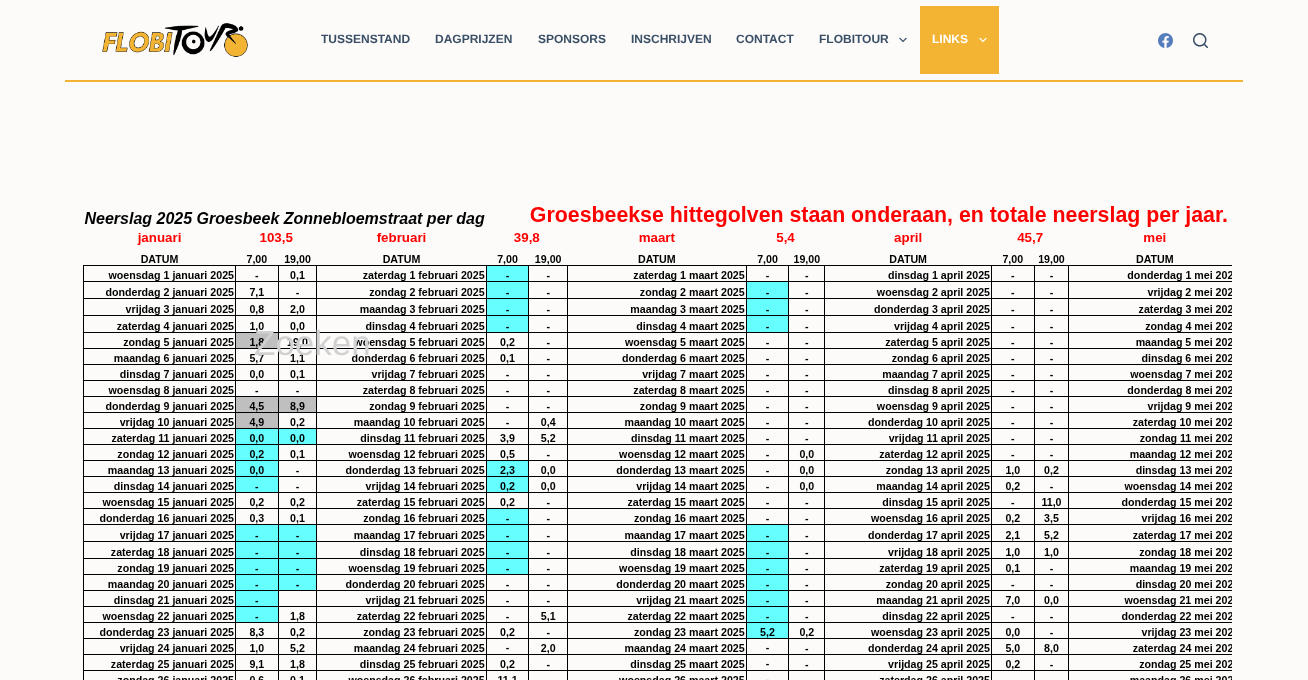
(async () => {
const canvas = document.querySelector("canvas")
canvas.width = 1308
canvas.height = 680
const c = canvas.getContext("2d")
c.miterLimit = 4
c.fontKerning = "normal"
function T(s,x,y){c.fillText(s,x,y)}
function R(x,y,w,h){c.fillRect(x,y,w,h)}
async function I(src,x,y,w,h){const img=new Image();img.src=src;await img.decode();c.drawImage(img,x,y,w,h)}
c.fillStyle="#fcfbfa"
R(0,0,1308,680)
c.fillStyle="#f3b434"
R(65,80,1178,2)
await I("1.png",102,23,146,34)
c.font="bold 12px Liberation Sans"
c.fillStyle="#3a4f66"
T("TUSSENSTAND",321,43)
T("DAGPRIJZEN",435,43)
T("SPONSORS",538,43)
T("INSCHRIJVEN",631,43)
T("CONTACT",736,43)
T("FLOBITOUR",819,43)
await I("2.png",899,37,8,6)
c.fillStyle="#f3b434"
R(920,6,79,68)
c.fillStyle="#fff"
T("LINKS",932,43)
await I("3.png",979,37,8,6)
await I("4.png",1158,33,15,15)
await I("5.png",1193,33,15,15)
await I("6.png",83,206,1149,474)
c.font="35px Liberation Sans"
c.fillStyle="#d2d1d1"
T("Zoeken",254,355)
})()
